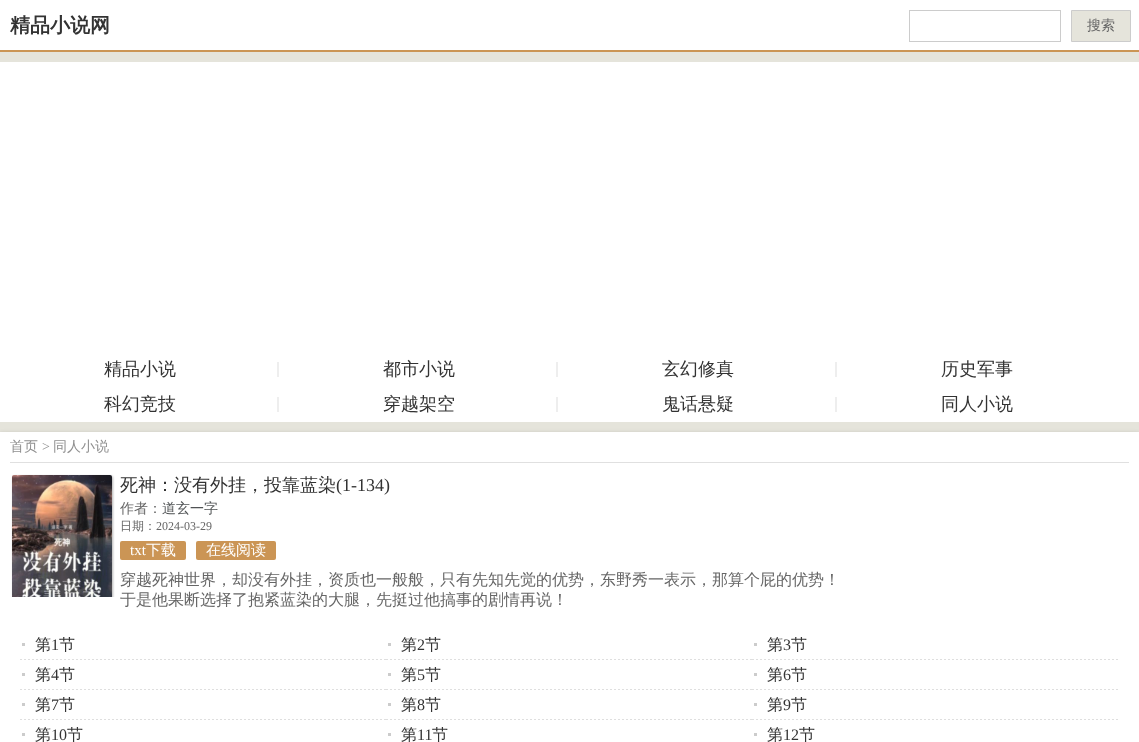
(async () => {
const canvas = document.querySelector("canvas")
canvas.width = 1139
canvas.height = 742
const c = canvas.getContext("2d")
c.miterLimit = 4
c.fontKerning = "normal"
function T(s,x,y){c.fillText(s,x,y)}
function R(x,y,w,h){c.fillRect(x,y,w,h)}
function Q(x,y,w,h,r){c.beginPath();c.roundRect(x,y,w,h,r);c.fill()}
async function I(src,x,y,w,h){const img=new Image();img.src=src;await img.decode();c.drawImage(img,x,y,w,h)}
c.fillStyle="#e5e4db"
R(0,0,1139,742)
c.fillStyle="#fff"
R(0,0,1139,50)
c.fillStyle="#cb9555"
R(0,50,1139,2)
c.font="bold 20px WenQuanYi Zen Hei"
c.fillStyle="#333"
T("精品小说网",10,32)
c.strokeStyle="#ccc"
c.strokeRect(909.5,10.5,151,31)
c.fillStyle="#e5e4db"
c.beginPath()
c.rect(1071.5,10.5,59,31)
c.fill()
c.stroke()
c.font="500 14px WenQuanYi Zen Hei"
c.fillStyle="#666"
T("搜索",1087,30)
c.fillStyle="#fff"
R(0,62,1139,360)
c.fillStyle="#eee"
R(277,362,2,15)
c.font="500 18px WenQuanYi Zen Hei"
c.fillStyle="#333"
T("精品小说",104,375)
c.fillStyle="#eee"
R(556,362,2,15)
c.fillStyle="#333"
T("都市小说",383,375)
c.fillStyle="#eee"
R(835,362,2,15)
c.fillStyle="#333"
T("玄幻修真",662,375)
T("历史军事",941,375)
c.fillStyle="#eee"
R(277,397,2,15)
c.fillStyle="#333"
T("科幻竞技",104,410)
c.fillStyle="#eee"
R(556,397,2,15)
c.fillStyle="#333"
T("穿越架空",383,410)
c.fillStyle="#eee"
R(835,397,2,15)
c.fillStyle="#333"
T("鬼话悬疑",662,410)
T("同人小说",941,410)
c.fillStyle="#00000042"
c.filter="blur(2.5px)"
c.beginPath()
c.rect(0,434,1139,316)
c.fill()
c.filter="none"
c.fillStyle="#fff"
R(0,432,1139,310)
c.fillStyle="#e0e0e0"
R(10,462,1119,1)
c.font="500 14px WenQuanYi Zen Hei"
c.fillStyle="#8f8f8f"
T("首页",10,451)
c.font="14px Liberation Serif"
T(">",42,451)
c.font="500 14px WenQuanYi Zen Hei"
T("同人小说",53,451)
c.save()
c.beginPath()
c.rect(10,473,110,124)
c.clip()
c.fillStyle="#0000004d"
c.filter="blur(1px)"
c.beginPath()
c.roundRect(13,476,100,148,2)
c.fill()
c.filter="none"
c.restore()
await I("1.png",12,475,100,122)
c.font="500 18px WenQuanYi Zen Hei"
c.fillStyle="#333"
T("死神：没有外挂，投靠蓝染",120,491)
c.font="18px Liberation Serif"
T("(1-134)",336,491)
c.font="500 14px WenQuanYi Zen Hei"
c.fillStyle="#666"
T("作者：",120,513)
c.fillStyle="#505355"
T("道玄一字",162,513)
c.font="500 12px WenQuanYi Zen Hei"
c.fillStyle="#666"
T("日期：",120,530)
c.font="12px Liberation Serif"
T("2024-03-29",156,530)
c.fillStyle="#cb9555"
Q(120,541,66,19,2)
c.font="15px Liberation Serif"
c.fillStyle="#fff"
T("txt",130,555)
c.font="500 15px WenQuanYi Zen Hei"
T("下载",146,555)
c.fillStyle="#cb9555"
Q(196,541,80,19,2)
c.fillStyle="#fff"
T("在线阅读",206,555)
c.font="500 16px WenQuanYi Zen Hei"
c.fillStyle="#666"
T("穿越死神世界，却没有外挂，资质也一般般，只有先知先觉的优势，东野秀一表示，那算个屁的优势！",120,585)
T("于是他果断选择了抱紧蓝染的大腿，先挺过他搞事的剧情再说！",120,605)
await I("2.png",20,659,366,1)
c.fillStyle="#333"
T("第",35,650)
c.fillStyle="#ccc"
R(22,643,3,3)
c.font="16px Liberation Serif"
c.fillStyle="#333"
T("1",51,650)
c.font="500 16px WenQuanYi Zen Hei"
T("节",59,650)
await I("2.png",386,659,366,1)
T("第",401,650)
c.fillStyle="#ccc"
R(388,643,3,3)
c.font="16px Liberation Serif"
c.fillStyle="#333"
T("2",417,650)
c.font="500 16px WenQuanYi Zen Hei"
T("节",425,650)
await I("2.png",752,659,366,1)
T("第",767,650)
c.fillStyle="#ccc"
R(754,643,3,3)
c.font="16px Liberation Serif"
c.fillStyle="#333"
T("3",783,650)
c.font="500 16px WenQuanYi Zen Hei"
T("节",791,650)
await I("2.png",20,689,366,1)
T("第",35,680)
c.fillStyle="#ccc"
R(22,673,3,3)
c.font="16px Liberation Serif"
c.fillStyle="#333"
T("4",51,680)
c.font="500 16px WenQuanYi Zen Hei"
T("节",59,680)
await I("2.png",386,689,366,1)
T("第",401,680)
c.fillStyle="#ccc"
R(388,673,3,3)
c.font="16px Liberation Serif"
c.fillStyle="#333"
T("5",417,680)
c.font="500 16px WenQuanYi Zen Hei"
T("节",425,680)
await I("2.png",752,689,366,1)
T("第",767,680)
c.fillStyle="#ccc"
R(754,673,3,3)
c.font="16px Liberation Serif"
c.fillStyle="#333"
T("6",783,680)
c.font="500 16px WenQuanYi Zen Hei"
T("节",791,680)
await I("2.png",20,719,366,1)
T("第",35,710)
c.fillStyle="#ccc"
R(22,703,3,3)
c.font="16px Liberation Serif"
c.fillStyle="#333"
T("7",51,710)
c.font="500 16px WenQuanYi Zen Hei"
T("节",59,710)
await I("2.png",386,719,366,1)
T("第",401,710)
c.fillStyle="#ccc"
R(388,703,3,3)
c.font="16px Liberation Serif"
c.fillStyle="#333"
T("8",417,710)
c.font="500 16px WenQuanYi Zen Hei"
T("节",425,710)
await I("2.png",752,719,366,1)
T("第",767,710)
c.fillStyle="#ccc"
R(754,703,3,3)
c.font="16px Liberation Serif"
c.fillStyle="#333"
T("9",783,710)
c.font="500 16px WenQuanYi Zen Hei"
T("节",791,710)
T("第",35,740)
c.fillStyle="#ccc"
R(22,733,3,3)
c.font="16px Liberation Serif"
c.fillStyle="#333"
T("10",51,740)
c.font="500 16px WenQuanYi Zen Hei"
T("节",67,740)
T("第",401,740)
c.fillStyle="#ccc"
R(388,733,3,3)
c.font="16px Liberation Serif"
c.fillStyle="#333"
T("11",417,740)
c.font="500 16px WenQuanYi Zen Hei"
T("节",432,740)
T("第",767,740)
c.fillStyle="#ccc"
R(754,733,3,3)
c.font="16px Liberation Serif"
c.fillStyle="#333"
T("12",783,740)
c.font="500 16px WenQuanYi Zen Hei"
T("节",799,740)
})()
